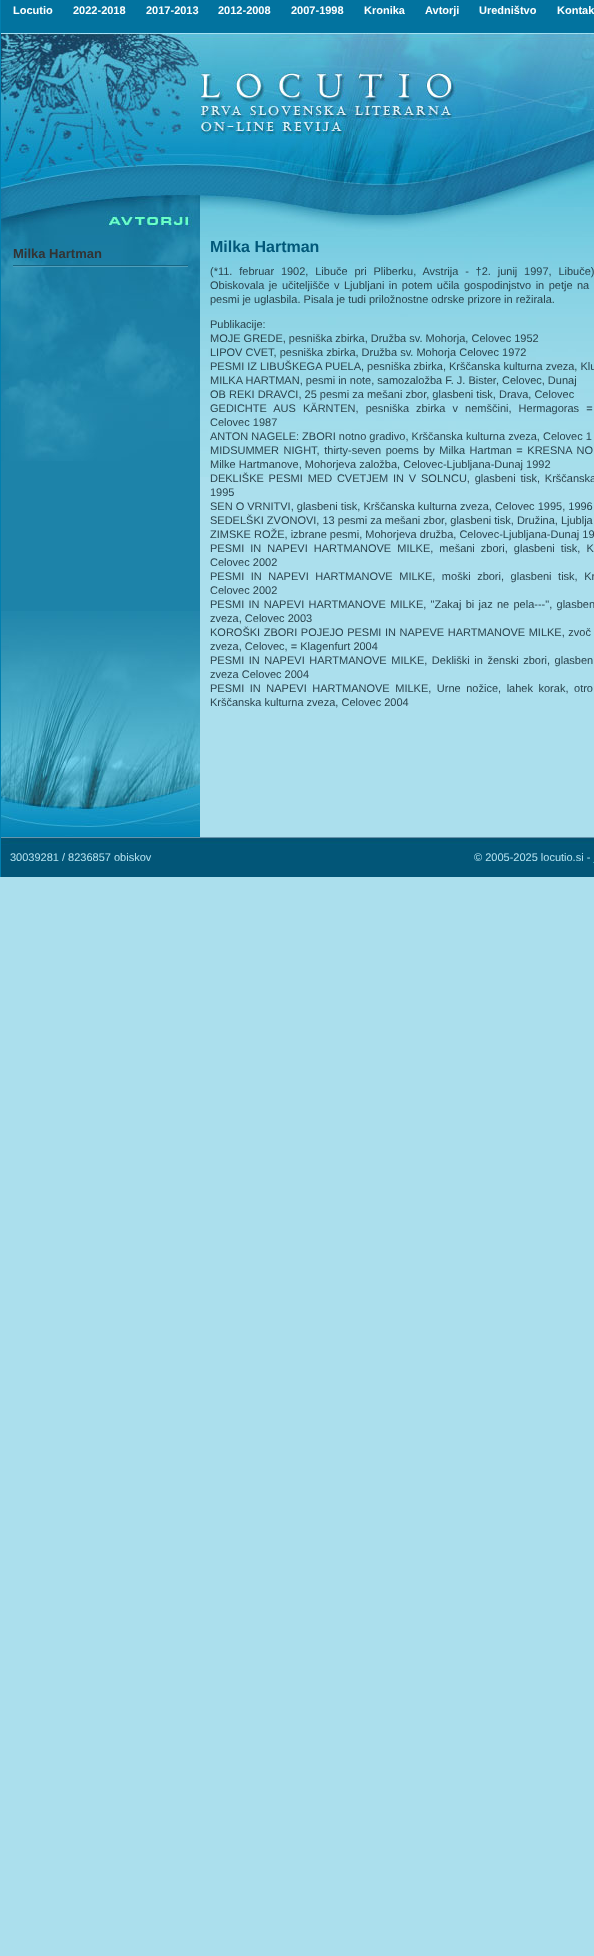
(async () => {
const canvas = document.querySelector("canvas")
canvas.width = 594
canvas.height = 1956
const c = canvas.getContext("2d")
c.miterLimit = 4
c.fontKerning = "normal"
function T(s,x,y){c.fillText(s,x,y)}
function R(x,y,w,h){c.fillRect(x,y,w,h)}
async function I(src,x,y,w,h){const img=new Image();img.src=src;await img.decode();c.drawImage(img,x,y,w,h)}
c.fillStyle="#abdfed"
R(0,0,594,1956)
c.fillStyle="#017faf"
R(0,0,1,877)
c.fillStyle="#02739f"
R(1,0,593,33)
c.font="bold 11px Liberation Sans"
c.fillStyle="#fff"
T("Locutio",13,14)
T("2022-2018",73,14)
T("2017-2013",146,14)
T("2012-2008",218,14)
T("2007-1998",291,14)
T("Kronika",364,14)
T("Avtorji",425,14)
T("Uredništvo",479,14)
T("Kontak",557,14)
await I("1.png",1,33,469,102)
await I("2.png",470,33,124,102)
await I("3.png",1,135,199,60)
await I("4.png",200,135,270,102)
await I("5.png",470,135,124,102)
await I("6.png",1,195,199,42)
c.fillStyle="#1d83a9"
R(1,461,199,150)
await I("7.png",1,237,199,224)
c.font="bold 13px Liberation Sans"
c.fillStyle="#333"
T("Milka Hartman",13,258)
await I("8.png",13,265,175,2)
await I("9.png",1,611,199,226)
await I("10.png",200,237,394,240)
c.font="bold 16px Liberation Sans"
c.fillStyle="#015879"
T("Milka Hartman",210,252)
c.wordSpacing="3.75px"
c.font="11px Liberation Sans"
c.fillStyle="#2a434d"
T("(*11. februar 1902, Libuče pri Pliberku, Avstrija - †2. junij 1997, Libuče)",210,275)
c.wordSpacing="1.4px"
T("Obiskovala je učiteljišče v Ljubljani in potem učila gospodinjstvo in petje na",210,289)
c.wordSpacing="0px"
T("pesmi je uglasbila. Pisala je tudi priložnostne odrske prizore in režirala.",210,303)
T("Publikacije:",210,328)
T("MOJE GREDE, pesniška zbirka, Družba sv. Mohorja, Celovec 1952",210,342)
T("LIPOV CVET, pesniška zbirka, Družba sv. Mohorja Celovec 1972",210,356)
T("PESMI IZ LIBUŠKEGA PUELA, pesniška zbirka, Krščanska kulturna zveza, Klu",210,370)
T("MILKA HARTMAN, pesmi in note, samozaložba F. J. Bister, Celovec, Dunaj",210,384)
T("OB REKI DRAVCI, 25 pesmi za mešani zbor, glasbeni tisk, Drava, Celovec",210,398)
c.wordSpacing="4px"
T("GEDICHTE AUS KÄRNTEN, pesniška zbirka v nemščini, Hermagoras =",210,412)
c.wordSpacing="0px"
T("Celovec 1987",210,426)
T("ANTON NAGELE: ZBORI notno gradivo, Krščanska kulturna zveza, Celovec 1",210,440)
c.wordSpacing="1.5px"
T("MIDSUMMER NIGHT, thirty-seven poems by Milka Hartman = KRESNA NO",210,454)
c.wordSpacing="0px"
T("Milke Hartmanove, Mohorjeva založba, Celovec-Ljubljana-Dunaj 1992",210,468)
c.wordSpacing="1.75px"
T("DEKLIŠKE PESMI MED CVETJEM IN V SOLNCU, glasbeni tisk, Krščanska",210,482)
c.wordSpacing="0px"
T("1995",210,496)
T("SEN O VRNITVI, glasbeni tisk, Krščanska kulturna zveza, Celovec 1995, 1996",210,510)
T("SEDELŠKI ZVONOVI, 13 pesmi za mešani zbor, glasbeni tisk, Družina, Ljublja",210,524)
T("ZIMSKE ROŽE, izbrane pesmi, Mohorjeva družba, Celovec-Ljubljana-Dunaj 19",210,538)
c.wordSpacing="3px"
T("PESMI IN NAPEVI HARTMANOVE MILKE, mešani zbori, glasbeni tisk, K",210,552)
c.wordSpacing="0px"
T("Celovec 2002",210,566)
c.wordSpacing="3.5px"
T("PESMI IN NAPEVI HARTMANOVE MILKE, moški zbori, glasbeni tisk, Kr",210,580)
c.wordSpacing="0px"
T("Celovec 2002",210,594)
c.wordSpacing="1.25px"
T("PESMI IN NAPEVI HARTMANOVE MILKE, \"Zakaj bi jaz ne pela---\", glasben",210,608)
c.wordSpacing="0px"
T("zveza, Celovec 2003",210,622)
c.wordSpacing="0.5px"
T("KOROŠKI ZBORI POJEJO PESMI IN NAPEVE HARTMANOVE MILKE, zvoč",210,636)
c.wordSpacing="0px"
T("zveza, Celovec, = Klagenfurt 2004",210,650)
c.wordSpacing="1.5px"
T("PESMI IN NAPEVI HARTMANOVE MILKE, Dekliški in ženski zbori, glasben",210,664)
c.wordSpacing="0px"
T("zveza Celovec 2004",210,678)
c.wordSpacing="2.5px"
T("PESMI IN NAPEVI HARTMANOVE MILKE, Urne nožice, lahek korak, otro",210,692)
c.wordSpacing="0px"
T("Krščanska kulturna zveza, Celovec 2004",210,706)
await I("11.png",1,837,593,40)
c.fillStyle="#b4e2f0"
T("30039281 / 8236857 obiskov",10,861)
T("© 2005-2025 locutio.si -",474,861)
c.fillStyle="#33a3b3"
R(593,862,1,1)
})()
